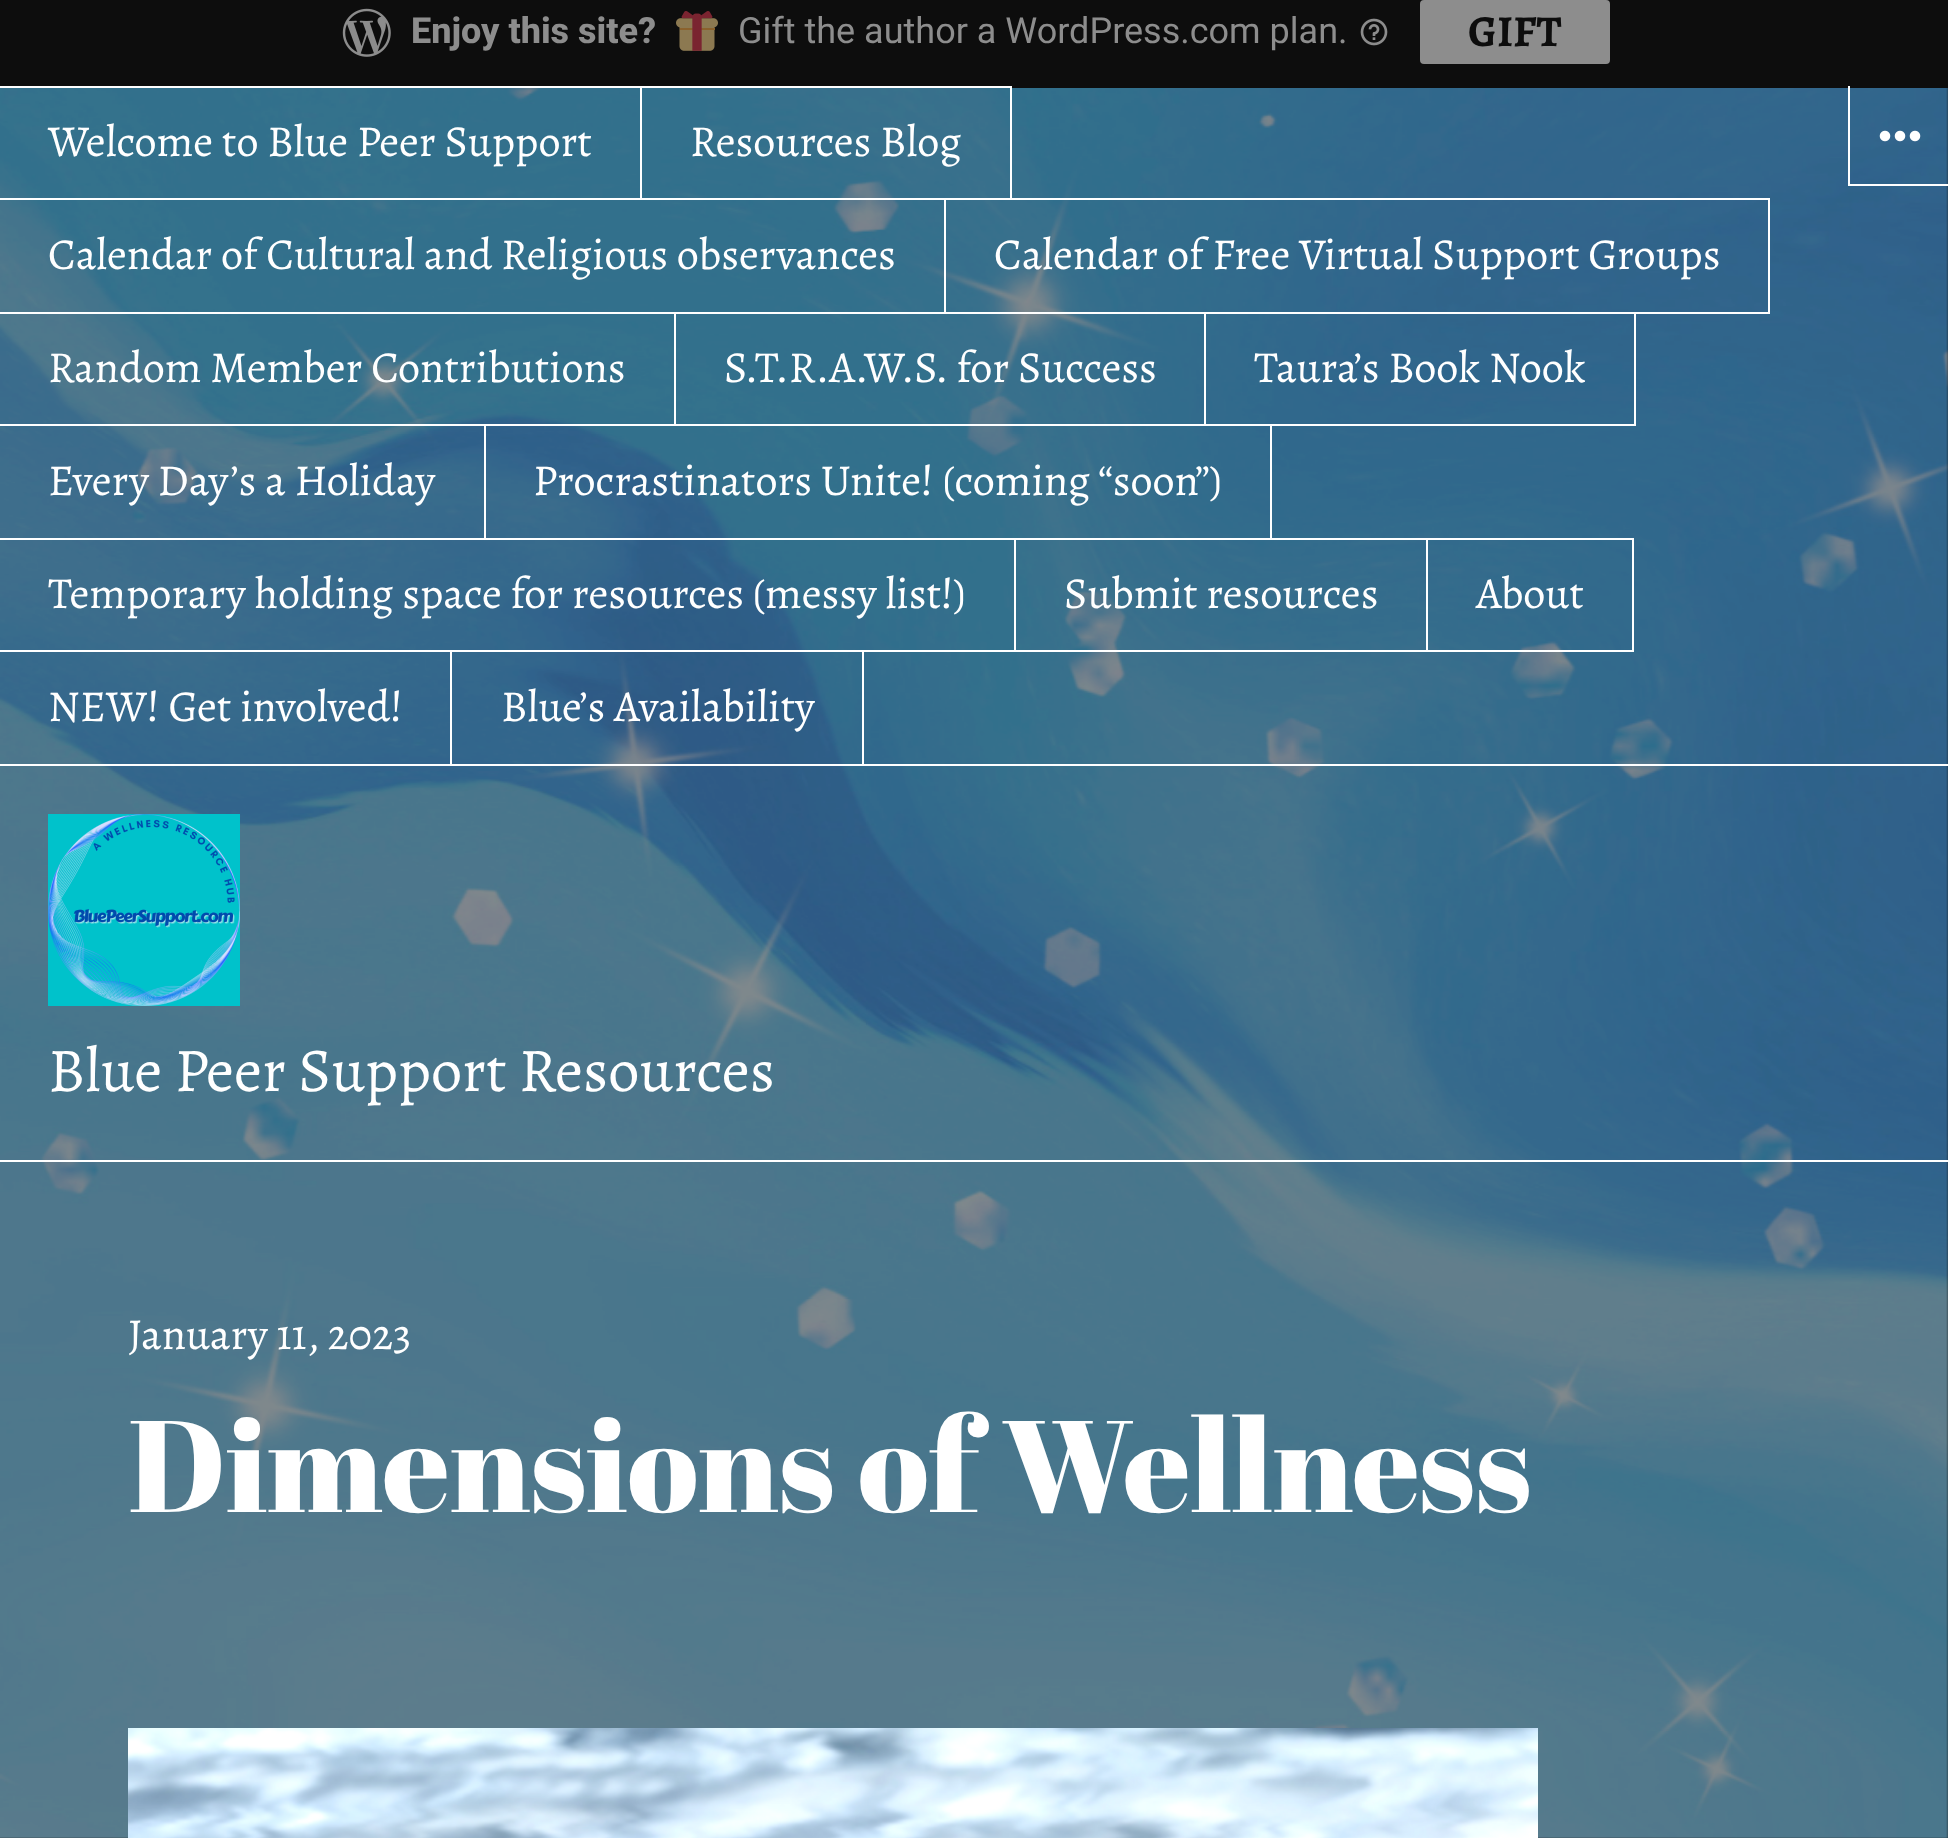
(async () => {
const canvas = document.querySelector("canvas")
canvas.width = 1948
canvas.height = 1838
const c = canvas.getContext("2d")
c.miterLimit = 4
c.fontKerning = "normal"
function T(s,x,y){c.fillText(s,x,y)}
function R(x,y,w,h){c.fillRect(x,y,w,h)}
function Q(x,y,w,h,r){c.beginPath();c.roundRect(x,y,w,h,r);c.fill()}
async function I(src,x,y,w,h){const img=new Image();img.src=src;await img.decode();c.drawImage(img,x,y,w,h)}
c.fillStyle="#1a1a1a"
R(0,0,1948,1838)
c.fillStyle="#0d0d0d"
R(0,0,1948,88)
await I("1.png",342,8,49,49)
c.font="800 36px Roboto"
c.fillStyle="#8d8d8d"
T("Enjoy this site?",411,43)
await I("2.png",676,11,42,40)
c.font="36px Roboto"
T("Gift the author a WordPress.com plan.",738,43)
await I("3.png",1360,18,28,28)
Q(1420,0,190,64,4)
c.font="bold 44.2px Alegreya"
c.fillStyle="#0d0d0d"
T("GIFT",1468,46)
await I("4.png",0,88,1948,1750)
c.fillStyle="#fff"
R(0,1160,1948,2)
R(0,86,1012,2)
R(640,86,2,114)
R(0,198,944,2)
c.font="44.2px Alegreya"
T("Welcome to Blue Peer Support",48,156)
R(1010,86,2,114)
T("Resources Blog",690,156)
R(944,198,2,116)
R(0,312,946,2)
T("Calendar of Cultural and Religious observances",48,269)
R(946,198,824,2)
R(1768,198,2,116)
R(946,312,824,2)
T("Calendar of Free Virtual Support Groups",994,269)
R(674,312,2,114)
R(0,424,676,2)
T("Random Member Contributions",48,382)
R(1204,312,2,114)
R(676,424,530,2)
T("S.T.R.A.W.S. for Success",724,382)
R(1634,312,2,114)
R(1206,424,430,2)
T("Taura’s Book Nook",1254,382)
R(484,424,2,116)
R(0,538,1014,2)
T("Every Day’s a Holiday",48,495)
R(1270,424,2,116)
T("Procrastinators Unite! (coming “soon”)",533,495)
R(1014,538,2,114)
R(0,650,1016,2)
T("Temporary holding space for resources (messy list!)",48,608)
R(1016,538,618,2)
R(1426,538,2,114)
R(1016,650,412,2)
T("Submit resources",1064,608)
R(1632,538,2,114)
R(1428,650,206,2)
T("About",1476,608)
R(0,764,1948,2)
R(450,650,2,116)
T("NEW! Get involved!",48,721)
R(862,650,2,116)
T("Blue’s Availability",501,721)
R(1848,184,100,2)
R(1848,86,2,100)
await I("5.png",1879,130,42,12)
await I("6.png",48,814,192,192)
c.font="62.4px Alegreya"
T("Blue Peer Support Resources",48,1091)
c.font="44.2px Alegreya"
T("January 11, 2023",128,1349)
c.font="130px Abril Fatface"
T("Dimensions of Wellness",128,1512)
await I("7.png",128,1728,1410,110)
})()
